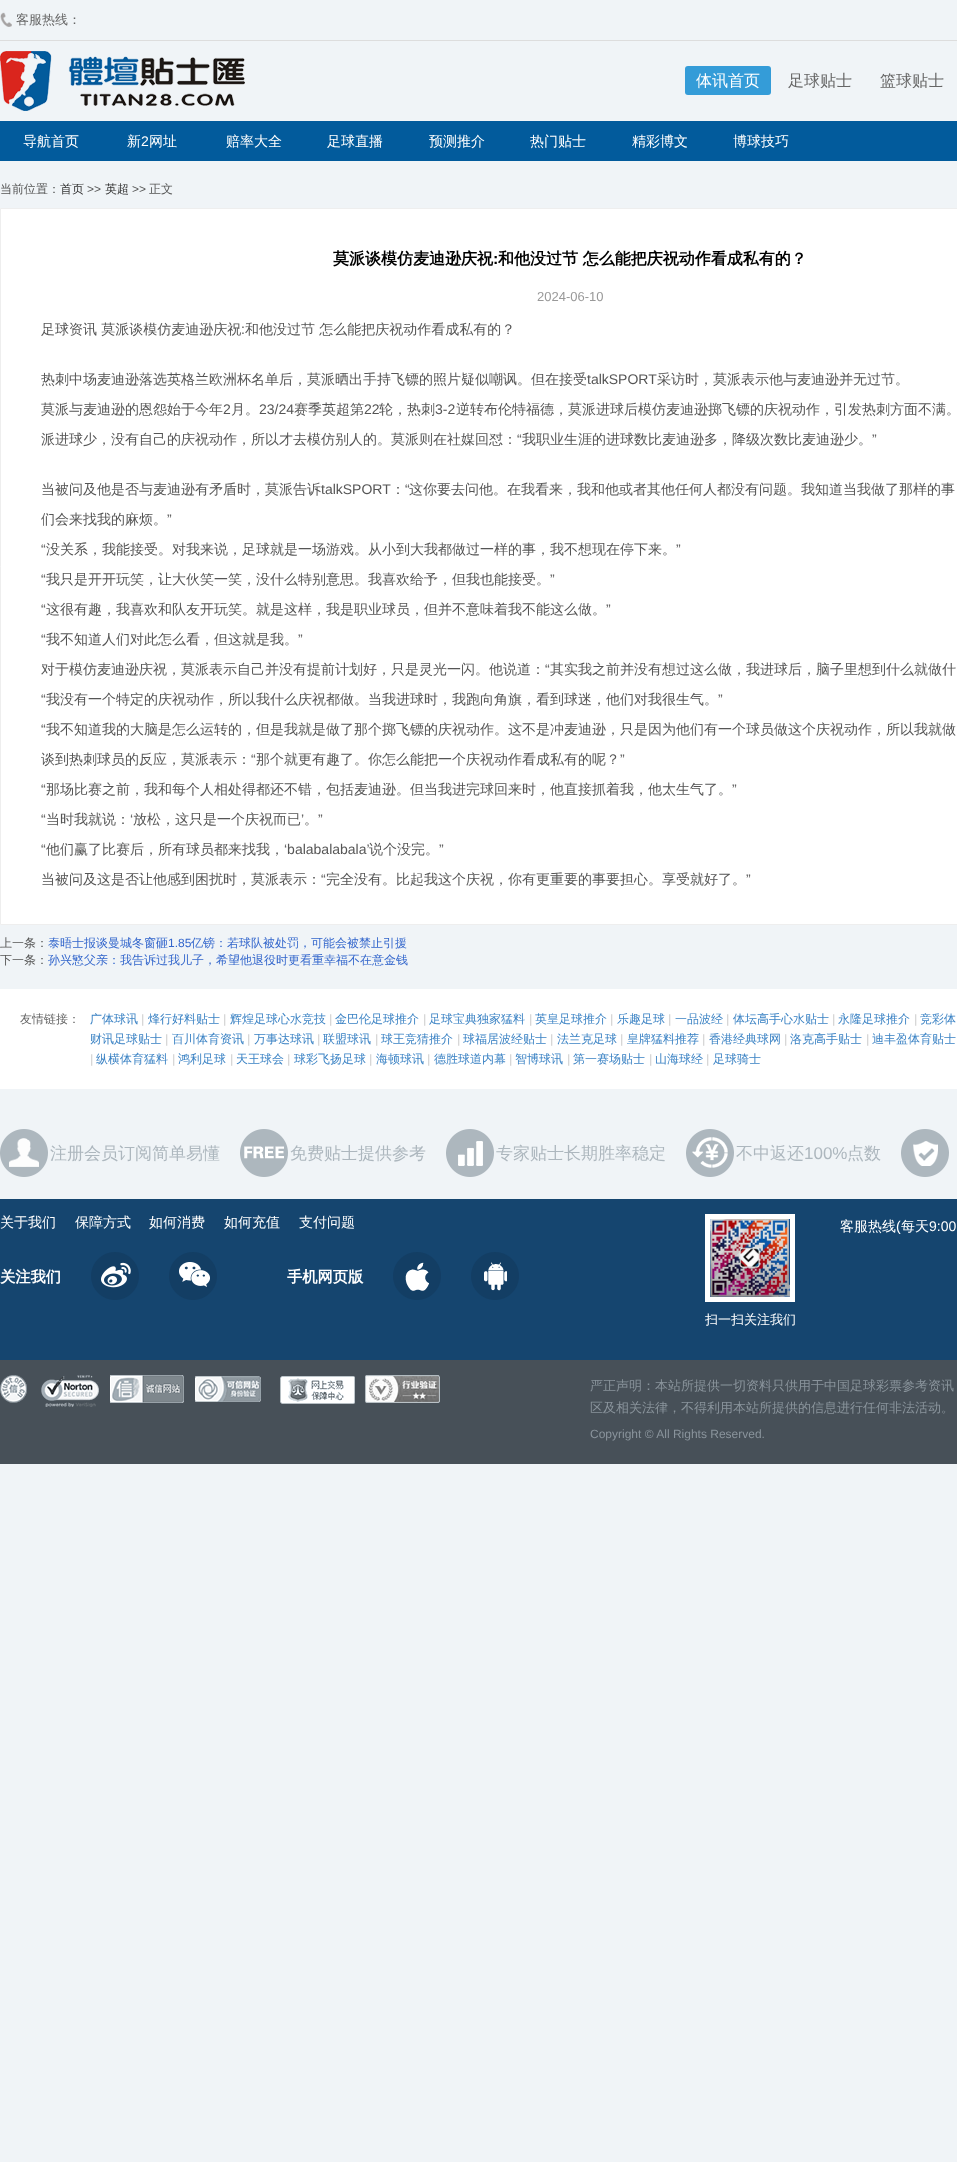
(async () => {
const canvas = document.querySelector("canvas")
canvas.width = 957
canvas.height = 2162
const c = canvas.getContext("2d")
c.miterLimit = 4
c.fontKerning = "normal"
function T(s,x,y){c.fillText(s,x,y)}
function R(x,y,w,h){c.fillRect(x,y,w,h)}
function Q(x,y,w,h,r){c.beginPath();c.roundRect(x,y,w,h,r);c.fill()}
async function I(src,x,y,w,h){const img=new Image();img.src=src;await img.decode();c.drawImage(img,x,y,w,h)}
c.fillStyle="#f0f4f7"
R(0,0,957,2162)
c.fillStyle="#ddd"
R(0,40,957,1)
await I("1.png",0,12,12,15)
c.font="500 13px WenQuanYi Zen Hei"
c.fillStyle="#666"
T("客服热线：",16,24)
await I("2.png",0,51,245,60)
c.fillStyle="#349cd8"
Q(685,66,86,29,3)
c.font="500 16px WenQuanYi Zen Hei"
c.fillStyle="#fff"
T("体讯首页",696,86)
c.fillStyle="#666"
T("足球贴士",788,86)
T("篮球贴士",880,86)
c.fillStyle="#025b9c"
R(0,121,957,40)
c.font="500 14px WenQuanYi Zen Hei"
c.fillStyle="#fff"
T("导航首页",23,146)
T("新",127,146)
c.font="14px Liberation Sans"
T("2",141,146)
c.font="500 14px WenQuanYi Zen Hei"
T("网址",149,146)
T("赔率大全",226,146)
T("足球直播",327,146)
T("预测推介",429,146)
T("热门贴士",530,146)
T("精彩博文",632,146)
T("博球技巧",733,146)
c.font="500 12px WenQuanYi Zen Hei"
c.fillStyle="#555"
T("当前位置：",0,193)
c.fillStyle="#333"
T("首页",60,193)
c.font="12px Liberation Sans"
c.fillStyle="#555"
T(">>",87,193)
c.font="500 12px WenQuanYi Zen Hei"
c.fillStyle="#333"
T("英超",105,193)
c.font="12px Liberation Sans"
c.fillStyle="#555"
T(">>",132,193)
c.font="500 12px WenQuanYi Zen Hei"
T("正文",149,193)
c.fillStyle="#fff"
c.beginPath()
c.rect(.5,208.5,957,716)
c.fill()
c.strokeStyle="#eee"
c.stroke()
c.font="bold 16px WenQuanYi Zen Hei"
c.fillStyle="#000"
T("莫派谈模仿麦迪逊庆祝",333,264)
c.font="bold 16px Liberation Sans"
T(":",493,264)
c.font="bold 16px WenQuanYi Zen Hei"
T("和他没过节 怎么能把庆祝动作看成私有的？",498,264)
c.font="13px Liberation Sans"
c.fillStyle="#999"
T("2024-06-10",537,301)
c.font="500 14px WenQuanYi Zen Hei"
c.fillStyle="#555"
T("足球资讯 莫派谈模仿麦迪逊庆祝",41,334)
c.font="14px Liberation Sans"
T(":",241,334)
c.font="500 14px WenQuanYi Zen Hei"
T("和他没过节 怎么能把庆祝动作看成私有的？",245,334)
T("热刺中场麦迪逊落选英格兰欧洲杯名单后，莫派晒出手持飞镖的照片疑似嘲讽。但在接受",41,384)
c.font="14px Liberation Sans"
T("talkSPORT",587,384)
c.font="500 14px WenQuanYi Zen Hei"
T("采访时，莫派表示他与麦迪逊并无过节。",657,384)
T("莫派与麦迪逊的恩怨始于今年",41,414)
c.font="14px Liberation Sans"
T("2",223,414)
c.font="500 14px WenQuanYi Zen Hei"
T("月。",231,414)
c.font="14px Liberation Sans"
T("23/24",259,414)
c.font="500 14px WenQuanYi Zen Hei"
T("赛季英超第",294,414)
c.font="14px Liberation Sans"
T("22",364,414)
c.font="500 14px WenQuanYi Zen Hei"
T("轮，热刺",379,414)
c.font="14px Liberation Sans"
T("3-2",435,414)
c.font="500 14px WenQuanYi Zen Hei"
T("逆转布伦特福德，莫派进球后模仿麦迪逊掷飞镖的庆祝动作，引发热刺方面不满。",456,414)
T("派进球少，没有自己的庆祝动作，所以才去模仿别人的。莫派则在社媒回怼：",41,444)
c.font="14px Liberation Sans"
T("“",517,444)
c.font="500 14px WenQuanYi Zen Hei"
T("我职业生涯的进球数比麦迪逊多，降级次数比麦迪逊少。",522,444)
c.font="14px Liberation Sans"
T("”",872,444)
c.font="500 14px WenQuanYi Zen Hei"
T("当被问及他是否与麦迪逊有矛盾时，莫派告诉",41,494)
c.font="14px Liberation Sans"
T("talkSPORT",321,494)
c.font="500 14px WenQuanYi Zen Hei"
T("：",391,494)
c.font="14px Liberation Sans"
T("“",405,494)
c.font="500 14px WenQuanYi Zen Hei"
T("这你要去问他。在我看来，我和他或者其他任何人都没有问题。我知道当我做了那样的事",409,494)
T("们会来找我的麻烦。",41,524)
c.font="14px Liberation Sans"
T("”",167,524)
T("“",41,554)
c.font="500 14px WenQuanYi Zen Hei"
T("没关系，我能接受。对我来说，足球就是一场游戏。从小到大我都做过一样的事，我不想现在停下来。",46,554)
c.font="14px Liberation Sans"
T("”",676,554)
T("“",41,584)
c.font="500 14px WenQuanYi Zen Hei"
T("我只是开开玩笑，让大伙笑一笑，没什么特别意思。我喜欢给予，但我也能接受。",46,584)
c.font="14px Liberation Sans"
T("”",550,584)
T("“",41,614)
c.font="500 14px WenQuanYi Zen Hei"
T("这很有趣，我喜欢和队友开玩笑。就是这样，我是职业球员，但并不意味着我不能这么做。",46,614)
c.font="14px Liberation Sans"
T("”",606,614)
T("“",41,644)
c.font="500 14px WenQuanYi Zen Hei"
T("我不知道人们对此怎么看，但这就是我。",46,644)
c.font="14px Liberation Sans"
T("”",298,644)
c.font="500 14px WenQuanYi Zen Hei"
T("对于模仿麦迪逊庆祝，莫派表示自己并没有提前计划好，只是灵光一闪。他说道：",41,674)
c.font="14px Liberation Sans"
T("“",545,674)
c.font="500 14px WenQuanYi Zen Hei"
T("其实我之前并没有想过这么做，我进球后，脑子里想到什么就做什",550,674)
c.font="14px Liberation Sans"
T("“",41,704)
c.font="500 14px WenQuanYi Zen Hei"
T("我没有一个特定的庆祝动作，所以我什么庆祝都做。当我进球时，我跑向角旗，看到球迷，他们对我很生气。",46,704)
c.font="14px Liberation Sans"
T("”",718,704)
T("“",41,734)
c.font="500 14px WenQuanYi Zen Hei"
T("我不知道我的大脑是怎么运转的，但是我就是做了那个掷飞镖的庆祝动作。这不是冲麦迪逊，只是因为他们有一个球员做这个庆祝动作，所以我就做",46,734)
T("谈到热刺球员的反应，莫派表示：",41,764)
c.font="14px Liberation Sans"
T("“",251,764)
c.font="500 14px WenQuanYi Zen Hei"
T("那个就更有趣了。你怎么能把一个庆祝动作看成私有的呢？",256,764)
c.font="14px Liberation Sans"
T("”",620,764)
T("“",41,794)
c.font="500 14px WenQuanYi Zen Hei"
T("那场比赛之前，我和每个人相处得都还不错，包括麦迪逊。但当我进完球回来时，他直接抓着我，他太生气了。",46,794)
c.font="14px Liberation Sans"
T("”",732,794)
T("“",41,824)
c.font="500 14px WenQuanYi Zen Hei"
T("当时我就说：",46,824)
c.font="14px Liberation Sans"
T("‘",130,824)
c.font="500 14px WenQuanYi Zen Hei"
T("放松，这只是一个庆祝而已",133,824)
c.font="14px Liberation Sans"
T("’",301,824)
T("”",318,824)
c.font="500 14px WenQuanYi Zen Hei"
T("。",304,824)
c.font="14px Liberation Sans"
T("“",41,854)
c.font="500 14px WenQuanYi Zen Hei"
T("他们赢了比赛后，所有球员都来找我，",46,854)
c.font="14px Liberation Sans"
T("‘balabalabala’",284,854)
c.font="500 14px WenQuanYi Zen Hei"
T("说个没完。",369,854)
c.font="14px Liberation Sans"
T("”",439,854)
c.font="500 14px WenQuanYi Zen Hei"
T("当被问及这是否让他感到困扰时，莫派表示：",41,884)
c.font="14px Liberation Sans"
T("“",321,884)
c.font="500 14px WenQuanYi Zen Hei"
T("完全没有。比起我这个庆祝，你有更重要的事要担心。享受就好了。",326,884)
c.font="14px Liberation Sans"
T("”",746,884)
c.font="500 12px WenQuanYi Zen Hei"
T("上一条：",0,947)
c.fillStyle="#36c"
T("泰晤士报谈曼城冬窗砸",48,947)
c.font="12px Liberation Sans"
T("1.85",168,947)
c.font="500 12px WenQuanYi Zen Hei"
T("亿镑：若球队被处罚，可能会被禁止引援",191,947)
c.fillStyle="#555"
T("下一条：",0,964)
c.fillStyle="#36c"
T("孙兴慜父亲：我告诉过我儿子，希望他退役时更看重幸福不在意金钱",48,964)
c.fillStyle="#fff"
R(0,989,957,100)
c.fillStyle="#666"
T("友情链接：",20,1023)
c.fillStyle="#3a82c4"
T("广体球讯",90,1023)
c.font="italic 12px Liberation Sans"
c.fillStyle="#ccc"
T("|",141,1023)
c.font="500 12px WenQuanYi Zen Hei"
c.fillStyle="#3a82c4"
T("烽行好料贴士",148,1023)
c.font="italic 12px Liberation Sans"
c.fillStyle="#ccc"
T("|",223,1023)
c.font="500 12px WenQuanYi Zen Hei"
c.fillStyle="#3a82c4"
T("辉煌足球心水竞技",230,1023)
c.font="italic 12px Liberation Sans"
c.fillStyle="#ccc"
T("|",329,1023)
c.font="500 12px WenQuanYi Zen Hei"
c.fillStyle="#3a82c4"
T("金巴伦足球推介",335,1023)
c.font="italic 12px Liberation Sans"
c.fillStyle="#ccc"
T("|",423,1023)
c.font="500 12px WenQuanYi Zen Hei"
c.fillStyle="#3a82c4"
T("足球宝典独家猛料",429,1023)
c.font="italic 12px Liberation Sans"
c.fillStyle="#ccc"
T("|",529,1023)
c.font="500 12px WenQuanYi Zen Hei"
c.fillStyle="#3a82c4"
T("英皇足球推介",535,1023)
c.font="italic 12px Liberation Sans"
c.fillStyle="#ccc"
T("|",610,1023)
c.font="500 12px WenQuanYi Zen Hei"
c.fillStyle="#3a82c4"
T("乐趣足球",617,1023)
c.font="italic 12px Liberation Sans"
c.fillStyle="#ccc"
T("|",668,1023)
c.font="500 12px WenQuanYi Zen Hei"
c.fillStyle="#3a82c4"
T("一品波经",675,1023)
c.font="italic 12px Liberation Sans"
c.fillStyle="#ccc"
T("|",726,1023)
c.font="500 12px WenQuanYi Zen Hei"
c.fillStyle="#3a82c4"
T("体坛高手心水贴士",733,1023)
c.font="italic 12px Liberation Sans"
c.fillStyle="#ccc"
T("|",832,1023)
c.font="500 12px WenQuanYi Zen Hei"
c.fillStyle="#3a82c4"
T("永隆足球推介",838,1023)
c.font="italic 12px Liberation Sans"
c.fillStyle="#ccc"
T("|",914,1023)
c.font="500 12px WenQuanYi Zen Hei"
c.fillStyle="#3a82c4"
T("竞彩体",920,1023)
T("财讯足球贴士",90,1043)
c.font="italic 12px Liberation Sans"
c.fillStyle="#ccc"
T("|",165,1043)
c.font="500 12px WenQuanYi Zen Hei"
c.fillStyle="#3a82c4"
T("百川体育资讯",172,1043)
c.font="italic 12px Liberation Sans"
c.fillStyle="#ccc"
T("|",247,1043)
c.font="500 12px WenQuanYi Zen Hei"
c.fillStyle="#3a82c4"
T("万事达球讯",254,1043)
c.font="italic 12px Liberation Sans"
c.fillStyle="#ccc"
T("|",317,1043)
c.font="500 12px WenQuanYi Zen Hei"
c.fillStyle="#3a82c4"
T("联盟球讯",323,1043)
c.font="italic 12px Liberation Sans"
c.fillStyle="#ccc"
T("|",375,1043)
c.font="500 12px WenQuanYi Zen Hei"
c.fillStyle="#3a82c4"
T("球王竞猜推介",381,1043)
c.font="italic 12px Liberation Sans"
c.fillStyle="#ccc"
T("|",457,1043)
c.font="500 12px WenQuanYi Zen Hei"
c.fillStyle="#3a82c4"
T("球福居波经贴士",463,1043)
c.font="italic 12px Liberation Sans"
c.fillStyle="#ccc"
T("|",550,1043)
c.font="500 12px WenQuanYi Zen Hei"
c.fillStyle="#3a82c4"
T("法兰克足球",557,1043)
c.font="italic 12px Liberation Sans"
c.fillStyle="#ccc"
T("|",620,1043)
c.font="500 12px WenQuanYi Zen Hei"
c.fillStyle="#3a82c4"
T("皇牌猛料推荐",627,1043)
c.font="italic 12px Liberation Sans"
c.fillStyle="#ccc"
T("|",702,1043)
c.font="500 12px WenQuanYi Zen Hei"
c.fillStyle="#3a82c4"
T("香港经典球网",709,1043)
c.font="italic 12px Liberation Sans"
c.fillStyle="#ccc"
T("|",784,1043)
c.font="500 12px WenQuanYi Zen Hei"
c.fillStyle="#3a82c4"
T("洛克高手贴士",790,1043)
c.font="italic 12px Liberation Sans"
c.fillStyle="#ccc"
T("|",866,1043)
c.font="500 12px WenQuanYi Zen Hei"
c.fillStyle="#3a82c4"
T("迪丰盈体育贴士",872,1043)
c.font="italic 12px Liberation Sans"
c.fillStyle="#ccc"
T("|",90,1063)
c.font="500 12px WenQuanYi Zen Hei"
c.fillStyle="#3a82c4"
T("纵横体育猛料",96,1063)
c.font="italic 12px Liberation Sans"
c.fillStyle="#ccc"
T("|",172,1063)
c.font="500 12px WenQuanYi Zen Hei"
c.fillStyle="#3a82c4"
T("鸿利足球",178,1063)
c.font="italic 12px Liberation Sans"
c.fillStyle="#ccc"
T("|",230,1063)
c.font="500 12px WenQuanYi Zen Hei"
c.fillStyle="#3a82c4"
T("天王球会",236,1063)
c.font="italic 12px Liberation Sans"
c.fillStyle="#ccc"
T("|",287,1063)
c.font="500 12px WenQuanYi Zen Hei"
c.fillStyle="#3a82c4"
T("球彩飞扬足球",294,1063)
c.font="italic 12px Liberation Sans"
c.fillStyle="#ccc"
T("|",369,1063)
c.font="500 12px WenQuanYi Zen Hei"
c.fillStyle="#3a82c4"
T("海顿球讯",376,1063)
c.font="italic 12px Liberation Sans"
c.fillStyle="#ccc"
T("|",427,1063)
c.font="500 12px WenQuanYi Zen Hei"
c.fillStyle="#3a82c4"
T("德胜球道内幕",434,1063)
c.font="italic 12px Liberation Sans"
c.fillStyle="#ccc"
T("|",509,1063)
c.font="500 12px WenQuanYi Zen Hei"
c.fillStyle="#3a82c4"
T("智博球讯",515,1063)
c.font="italic 12px Liberation Sans"
c.fillStyle="#ccc"
T("|",567,1063)
c.font="500 12px WenQuanYi Zen Hei"
c.fillStyle="#3a82c4"
T("第一赛场贴士",573,1063)
c.font="italic 12px Liberation Sans"
c.fillStyle="#ccc"
T("|",649,1063)
c.font="500 12px WenQuanYi Zen Hei"
c.fillStyle="#3a82c4"
T("山海球经",655,1063)
c.font="italic 12px Liberation Sans"
c.fillStyle="#ccc"
T("|",706,1063)
c.font="500 12px WenQuanYi Zen Hei"
c.fillStyle="#3a82c4"
T("足球骑士",713,1063)
await I("3.png",0,1129,48,48)
await I("4.png",9,1138,30,29)
c.font="500 17px WenQuanYi Zen Hei"
c.fillStyle="#adb7be"
T("注册会员订阅简单易懂",50,1159)
await I("3.png",240,1129,48,48)
await I("5.png",244,1146,40,13)
T("免费贴士提供参考",290,1159)
await I("3.png",446,1129,48,48)
await I("6.png",458,1141,25,25)
T("专家贴士长期胜率稳定",496,1159)
await I("3.png",686,1129,48,48)
await I("7.png",692,1137,36,31)
T("不中返还",736,1159)
c.font="17px Liberation Sans"
T("100%",804,1159)
c.font="500 17px WenQuanYi Zen Hei"
T("点数",847,1159)
await I("3.png",901,1129,48,48)
await I("8.png",913,1141,25,25)
c.fillStyle="#15456f"
R(0,1199,957,161)
c.font="500 14px WenQuanYi Zen Hei"
c.fillStyle="#fff"
T("关于我们",0,1227)
T("保障方式",75,1227)
T("如何消费",149,1227)
T("如何充值",224,1227)
T("支付问题",299,1227)
c.font="bold 15.25px WenQuanYi Zen Hei"
T("关注我们",0,1282)
await I("9.png",91,1252,48,48)
await I("10.png",101,1262,30,26)
await I("9.png",169,1252,48,48)
await I("11.png",179,1262,31,25)
T("手机网页版",287,1282)
await I("9.png",393,1252,48,48)
await I("12.png",405,1262,24,29)
await I("9.png",471,1252,48,48)
await I("13.png",484,1262,23,29)
c.font="500 14px WenQuanYi Zen Hei"
T("客服热线",840,1231)
c.font="14px Liberation Sans"
T("(",896,1231)
c.font="500 14px WenQuanYi Zen Hei"
T("每天",901,1231)
c.font="14px Liberation Sans"
T("9:00",929,1231)
c.strokeStyle="#fff"
c.lineWidth=5
c.strokeRect(707.5,1216.5,85,83)
await I("14.png",710,1219,80,78)
c.font="500 13px WenQuanYi Zen Hei"
T("扫一扫关注我们",705,1324)
c.fillStyle="#475058"
R(0,1360,957,104)
await I("15.png",0,1375,27,28)
await I("16.png",41,1375,58,32)
await I("17.png",110,1375,74,28)
await I("18.png",195,1376,66,26)
await I("19.png",280,1376,75,28)
await I("20.png",365,1375,75,28)
c.fillStyle="#8a949c"
T("严正声明：本站所提供一切资料只供用于中国足球彩票参考资讯",590,1390)
T("区及相关法律，不得利用本站所提供的信息进行任何非法活动。",590,1412)
c.font="12px Liberation Sans"
T("Copyright © All Rights Reserved.",590,1438)
})()
